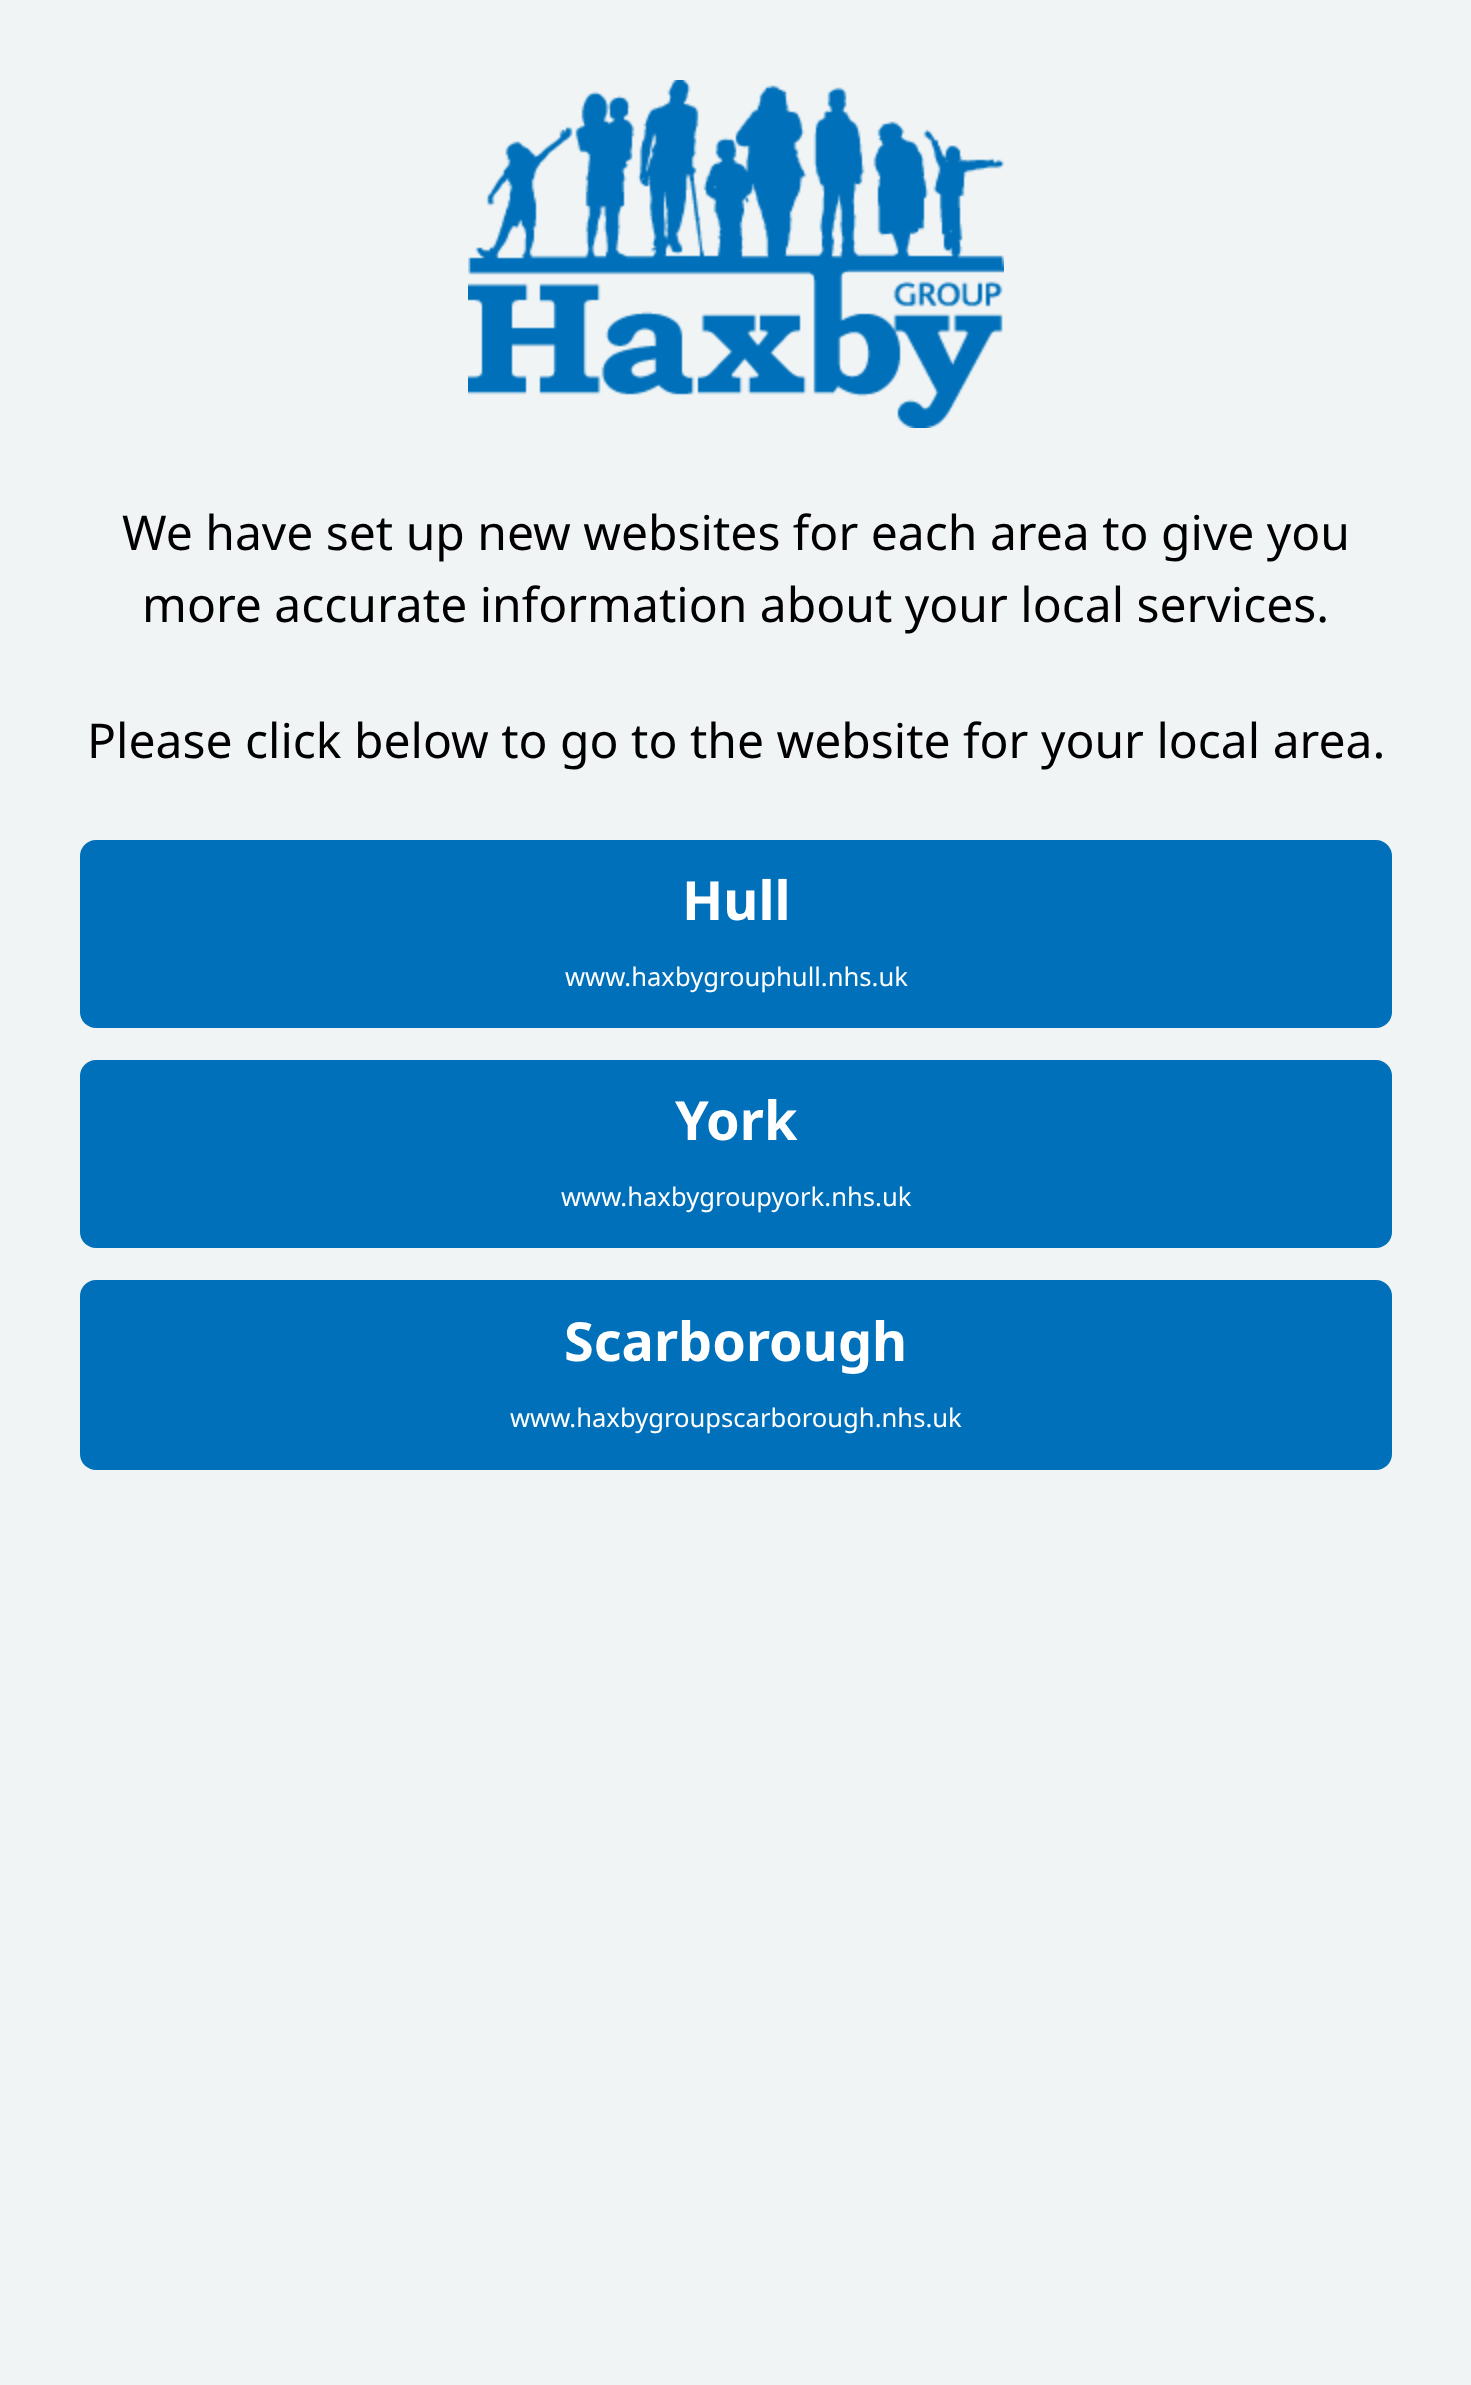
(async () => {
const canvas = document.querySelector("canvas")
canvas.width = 1471
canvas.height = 2385
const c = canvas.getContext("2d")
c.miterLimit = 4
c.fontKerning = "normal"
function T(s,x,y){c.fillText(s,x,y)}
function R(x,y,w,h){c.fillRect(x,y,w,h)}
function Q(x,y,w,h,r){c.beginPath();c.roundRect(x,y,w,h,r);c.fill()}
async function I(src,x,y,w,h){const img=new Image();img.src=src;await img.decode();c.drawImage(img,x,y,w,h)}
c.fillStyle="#f0f4f5"
R(0,0,1471,2385)
await I("1.png",468,80,536,348)
c.font="48px Noto Sans"
c.fillStyle="#000"
T("We have set up new websites for each area to give you",122,550)
T("more accurate information about your local services.",142,622)
T("Please click below to go to the website for your local area.",87,758)
c.fillStyle="#0070ba"
Q(80,840,1312,188,16)
c.font="bold 54px Noto Sans"
c.fillStyle="#fff"
T("Hull",682,920)
c.font="25.6px Noto Sans"
T("www.haxbygrouphull.nhs.uk",565,986)
c.fillStyle="#0070ba"
Q(80,1060,1312,188,16)
c.font="bold 54px Noto Sans"
c.fillStyle="#fff"
T("York",675,1140)
c.font="25.6px Noto Sans"
T("www.haxbygroupyork.nhs.uk",561,1206)
c.fillStyle="#0070ba"
Q(80,1280,1312,190,16)
c.font="bold 54px Noto Sans"
c.fillStyle="#fff"
T("Scarborough",564,1361)
c.font="25.6px Noto Sans"
T("www.haxbygroupscarborough.nhs.uk",510,1427)
})()
